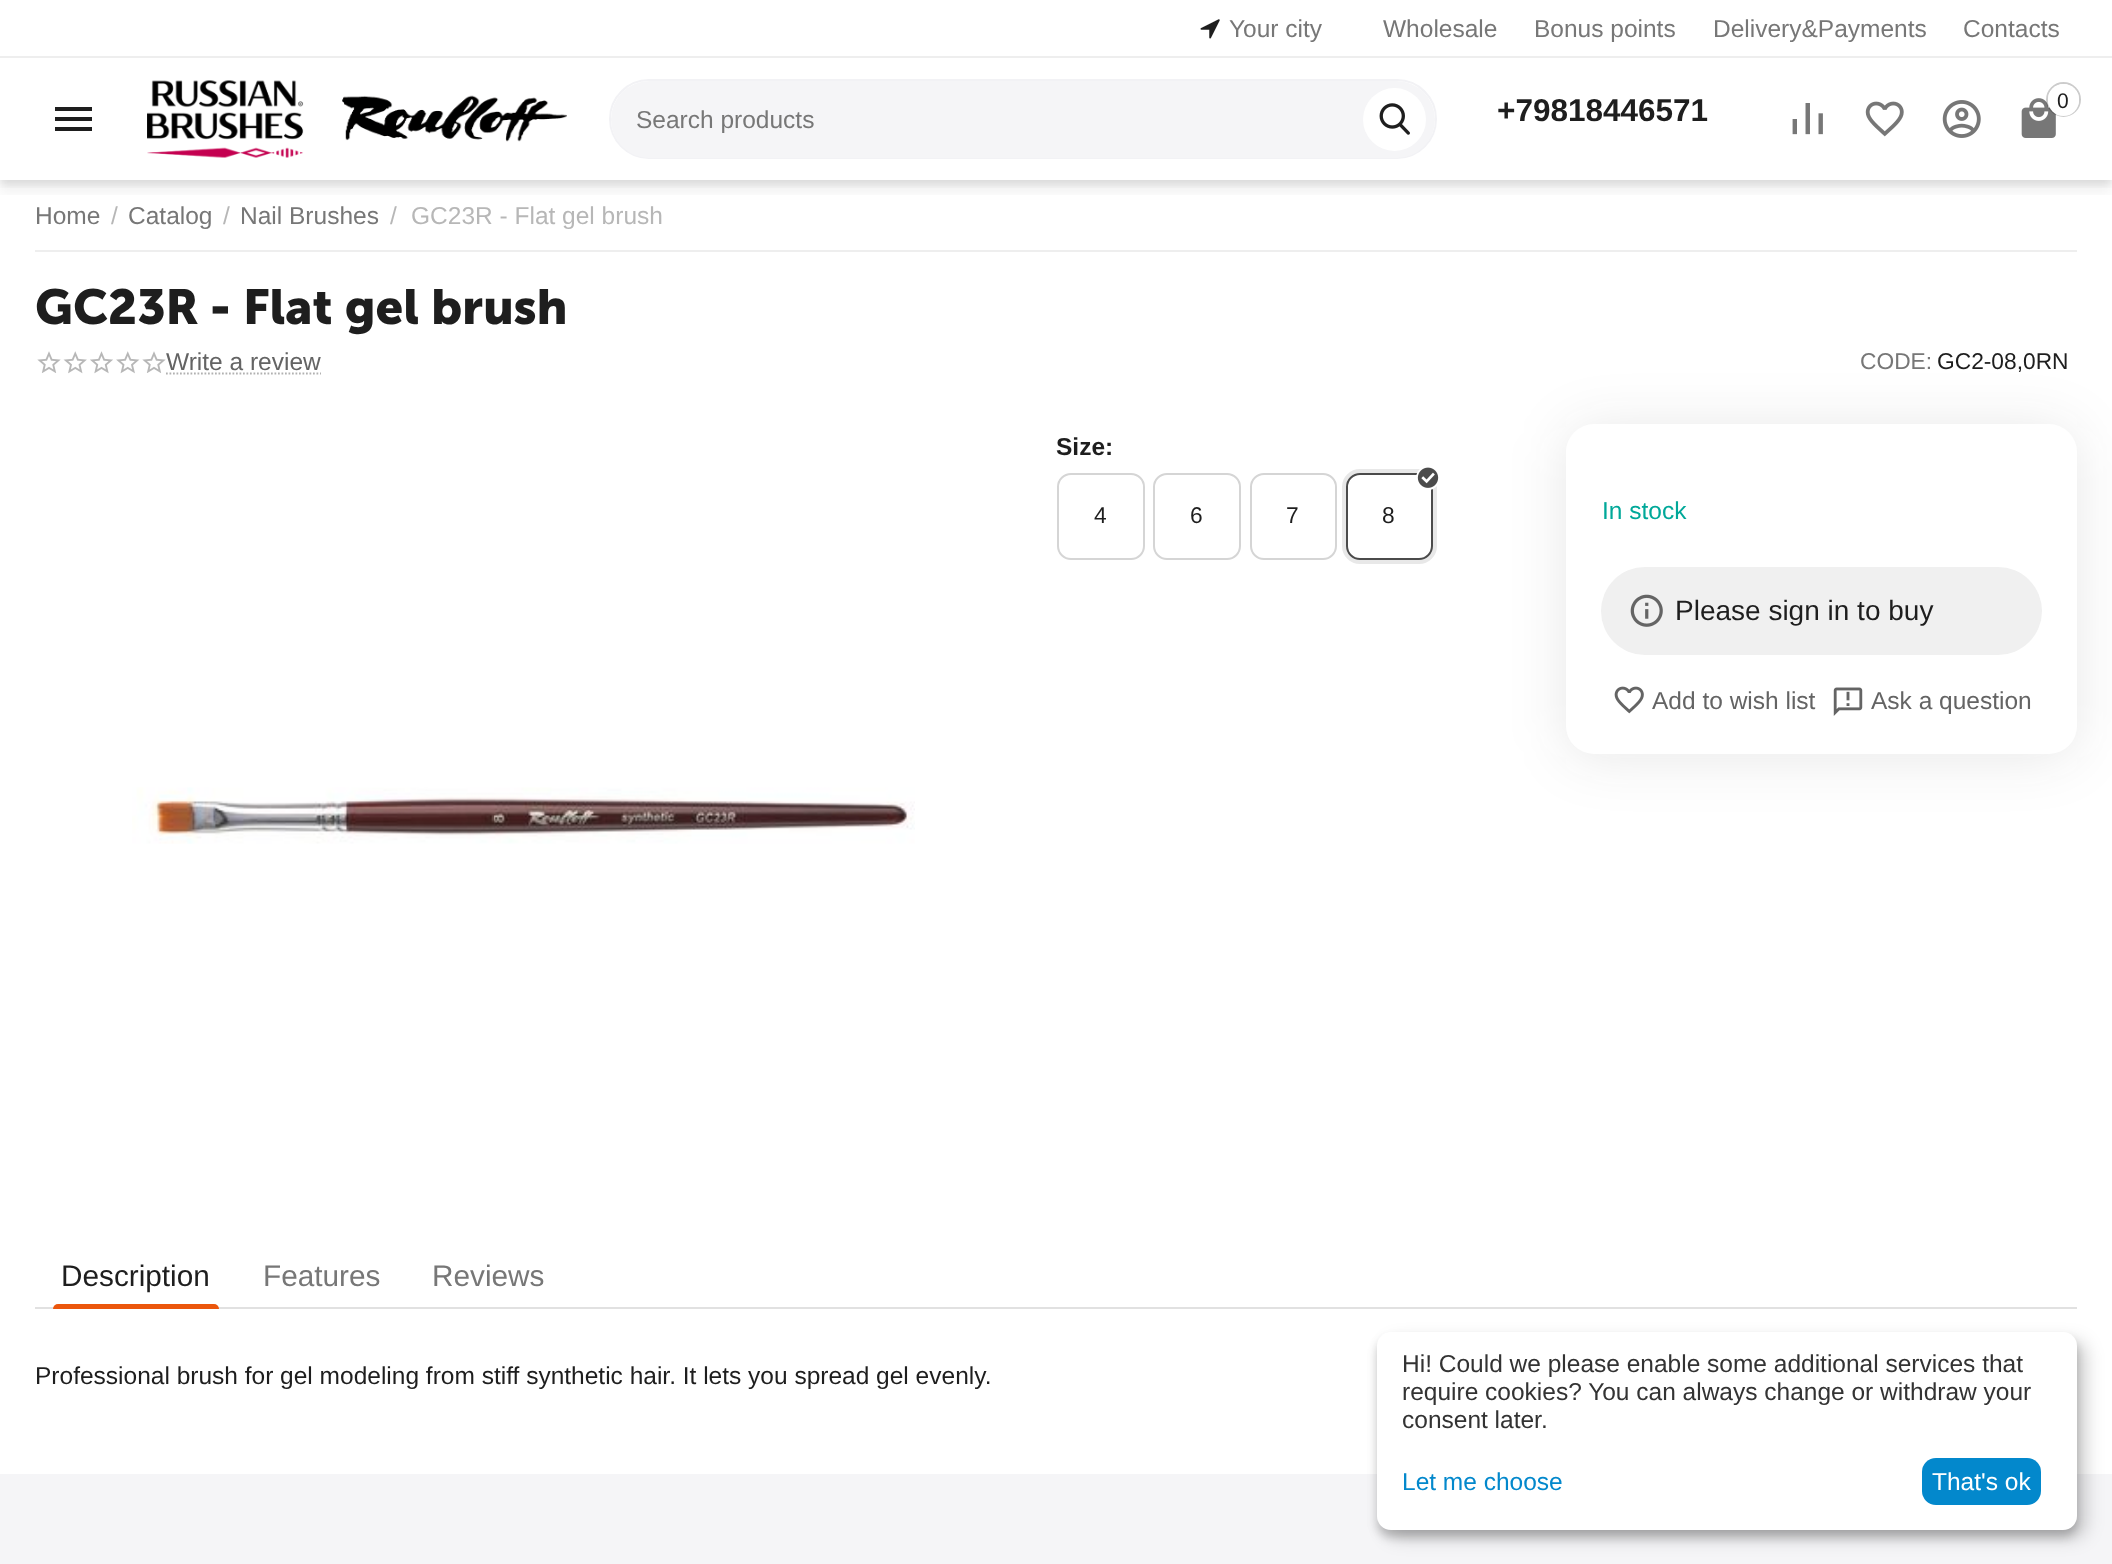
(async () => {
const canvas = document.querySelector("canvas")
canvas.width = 2112
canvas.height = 1564
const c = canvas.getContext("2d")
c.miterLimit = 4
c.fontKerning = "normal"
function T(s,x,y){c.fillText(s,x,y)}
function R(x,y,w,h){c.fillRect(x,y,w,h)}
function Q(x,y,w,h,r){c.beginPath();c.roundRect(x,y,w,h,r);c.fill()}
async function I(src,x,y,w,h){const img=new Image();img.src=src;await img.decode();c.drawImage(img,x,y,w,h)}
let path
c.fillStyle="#fff"
R(0,0,2112,1564)
c.fillStyle="#eee"
R(0,56,2112,2)
await I("1.png",1200,19,20,20)
c.font="24.5px Liberation Sans"
c.fillStyle="#777"
T("Your city",1229,37)
T("Wholesale",1383,37)
T("Bonus points",1534,37)
T("Delivery&Payments",1713,37)
T("Contacts",1963,37)
c.save()
c.beginPath()
c.rect(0,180,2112,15)
c.clip()
c.fillStyle="#0000000d"
c.filter="blur(6px)"
c.beginPath()
c.rect(0,70,2112,123)
c.fill()
c.filter="none"
c.restore()
c.save()
c.beginPath()
c.rect(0,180,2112,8)
c.clip()
c.fillStyle="#0000001a"
c.filter="blur(4.5px)"
c.beginPath()
c.rect(0,61,2112,123)
c.fill()
c.filter="none"
c.restore()
c.fillStyle="#1e1e1e"
path = new Path2D("M55 131h37v-4h-37zm0-10h37v-4h-37zm0-14v4h37v-4z")
c.fill(path)
await I("2.png",147,80,420,78)
c.beginPath()
c.roundRect(610,80,826,78,39)
c.strokeStyle="#f2f2f5"
c.lineWidth=2
c.stroke()
c.fillStyle="#f5f5f7"
Q(611,81,824,77,38.5)
c.fillStyle="#777"
T("Search products",636,128)
c.fillStyle="#fff"
c.beginPath()
c.arc(1394.5,119.5,31.5,0,7)
c.fill()
await I("3.png",1379,103,31,32)
c.font="bold 31.5px Liberation Sans"
c.fillStyle="#1e1e1e"
T("+79818446571",1497,121)
await I("4.png",1792,103,31,32)
await I("5.png",1865,101,39,36)
await I("6.png",1942,100,39,38)
await I("7.png",2021,98,35,40)
c.beginPath()
c.arc(2063.5,99.5,16.5,0,7)
c.strokeStyle="#00000033"
c.stroke()
c.fillStyle="#fff"
Q(2048,84,31,32,15.5)
c.font="21px Liberation Sans"
c.fillStyle="#1e1e1e"
T("0",2057,108)
c.fillStyle="#eee"
R(35,250,2042,2)
c.font="24.5px Liberation Sans"
c.fillStyle="#777"
T("Home",35,224)
c.fillStyle="#b7b7b7"
T("/",111,224)
c.fillStyle="#777"
T("Catalog",128,224)
c.fillStyle="#b7b7b7"
T("/",223,224)
c.fillStyle="#777"
T("Nail Brushes",240,224)
c.fillStyle="#b7b7b7"
T("/",390,224)
T("GC23R - Flat gel brush",411,224)
c.font="bold 49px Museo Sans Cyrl"
c.fillStyle="#1e1e1e"
T("GC23R - Flat gel brush",35,324)
await I("8.png",37,351,24,22)
await I("9.png",63,351,24,23)
await I("10.png",90,351,23,23)
await I("11.png",116,351,24,23)
await I("8.png",142,351,24,22)
c.font="24.5px Liberation Sans"
c.fillStyle="#646464"
T("Write a review",166,370)
path = new Path2D("M166 373.5h155")
c.strokeStyle="#b1b1b1"
c.lineWidth=1.8
c.setLineDash([1.75,1.75])
c.stroke(path)
c.font="22.75px Liberation Sans"
c.fillStyle="#777"
T("CODE:",1860,369)
c.fillStyle="#1e1e1e"
T("GС2-08,0RN",1937,369)
c.font="bold 24.5px Liberation Sans"
T("Size:",1056,455)
c.beginPath()
c.roundRect(1058,474,86,85,13)
c.strokeStyle="#d5d5d5"
c.lineWidth=2
c.setLineDash([])
c.stroke()
c.font="22.75px Liberation Sans"
T("4",1094,523)
c.beginPath()
c.roundRect(1154,474,86,85,13)
c.stroke()
T("6",1190,523)
c.beginPath()
c.roundRect(1251,474,85,85,13)
c.stroke()
T("7",1286,523)
c.beginPath()
c.roundRect(1344,471,91,91,16)
c.strokeStyle="#e8e8e8"
c.lineWidth=4
c.stroke()
c.beginPath()
c.roundRect(1347,474,85,85,13)
c.strokeStyle="#4b4b4b"
c.lineWidth=2
c.stroke()
c.fillStyle="#fff"
c.beginPath()
c.arc(1428,478,12,0,7)
c.fill()
await I("12.png",1417,467,22,21)
c.fillStyle="#1e1e1e"
T("8",1382,523)
c.fillStyle="#1e1e1e1a"
c.filter="blur(28px)"
c.beginPath()
c.roundRect(1566,427,511,331,28)
c.fill()
c.filter="none"
c.fillStyle="#fff"
Q(1566,424,511,330,28)
c.font="24.5px Liberation Sans"
c.fillStyle="#00a899"
T("In stock",1602,519)
c.fillStyle="#f0f0f0"
Q(1601,567,441,88,44)
await I("13.png",1630,594,33,33)
c.font="28px Liberation Sans"
c.fillStyle="#1e1e1e"
T("Please sign in to buy",1675,620)
await I("14.png",1614,686,30,28)
c.font="24.5px Liberation Sans"
c.fillStyle="#646464"
T("Add to wish list",1652,709)
await I("15.png",1833,687,30,29)
T("Ask a question",1871,709)
await I("16.png",132,787,783,57)
c.font="29.75px Liberation Sans"
c.fillStyle="#1e1e1e"
T("Description",61,1286)
c.fillStyle="#e1e1e1"
R(35,1307,2042,2)
c.fillStyle="#eb560c"
c.beginPath()
c.roundRect(53,1304,166,5,[5,5,0,0])
c.fill()
c.fillStyle="#777"
T("Features",263,1286)
T("Reviews",432,1286)
c.font="24.5px Liberation Sans"
c.fillStyle="#1e1e1e"
T("Professional brush for gel modeling from stiff synthetic hair. It lets you spread gel evenly.",35,1384)
c.fillStyle="#f5f5f7"
R(0,1474,2112,90)
c.fillStyle="#00000030"
c.filter="blur(9px)"
c.beginPath()
c.roundRect(1386,1341,700,197,14)
c.fill()
c.filter="none"
c.fillStyle="#00000033"
c.filter="blur(5px)"
c.beginPath()
c.roundRect(1377,1339,700,198,14)
c.fill()
c.filter="none"
c.fillStyle="#fff"
Q(1377,1332,700,198,14)
c.fillStyle="#333"
T("Hi! Could we please enable some additional services that",1402,1372)
T("require cookies? You can always change or withdraw your",1402,1400)
T("consent later.",1402,1428)
c.fillStyle="#0388cc"
T("Let me choose",1402,1490)
Q(1922,1458,119,47,14)
c.fillStyle="#fff"
T("That's ok",1932,1490)
})()
